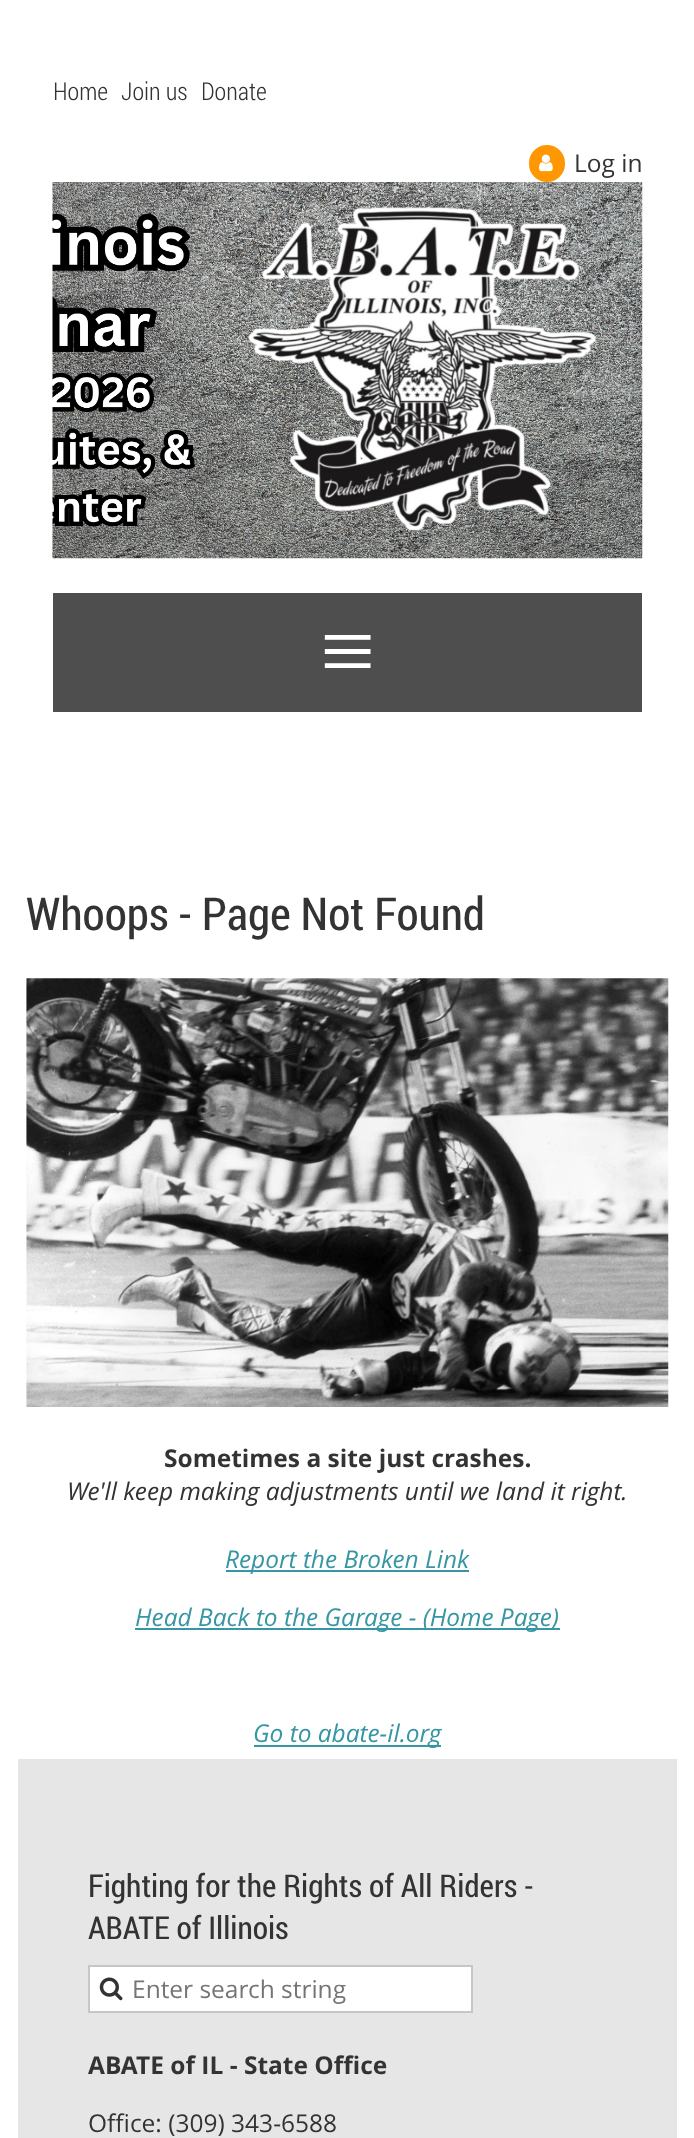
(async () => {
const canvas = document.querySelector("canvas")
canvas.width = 694
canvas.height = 2138
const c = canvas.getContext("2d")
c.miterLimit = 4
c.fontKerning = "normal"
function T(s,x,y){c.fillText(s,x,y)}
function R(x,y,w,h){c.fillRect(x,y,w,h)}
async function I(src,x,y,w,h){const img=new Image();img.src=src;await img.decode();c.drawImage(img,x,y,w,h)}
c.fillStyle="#fff"
R(0,0,694,2138)
c.font="300 24.5px Roboto Condensed"
c.fillStyle="#333"
T("Home",53,100)
T("Join us",121,100)
T("Donate",201,100)
c.fillStyle="#fe9701"
c.beginPath()
c.roundRect(531,147,32,33,16)
c.fill()
c.strokeStyle="#fe9701"
c.lineWidth=4
c.stroke()
await I("1.png",539,154,14,18)
c.font="24.5px Open Sans"
c.fillStyle="#333"
T("Log in",574,172)
await I("2.png",52,182,591,377)
c.fillStyle="#4e4e4e"
R(53,593,589,119)
c.font="98px Liberation Serif"
c.fillStyle="#fff"
T("≡",320,684)
c.font="45.5px Roboto Condensed"
c.fillStyle="#333"
T("Whoops - Page Not Found",26,930)
await I("3.png",26,978,643,429)
c.font="bold 24.5px Open Sans"
T("Sometimes a site just crashes.",164,1467)
c.font="italic 24.5px Open Sans"
T("We'll keep making adjustments until we land it right.",67,1500)
c.fillStyle="#3696a4"
R(226,1570,243,2)
T("Report the Broken Link",225,1568)
R(135,1628,425,2)
T("Head Back to the Garage - (Home Page)",135,1626)
R(254,1745,187,2)
T("Go to abate-il.org",253,1742)
c.fillStyle="#e6e6e6"
R(18,1759,659,379)
c.font="31.5px Roboto Condensed"
c.fillStyle="#333"
T("Fighting for the Rights of All Riders -",88,1897)
T("ABATE of Illinois",88,1939)
c.fillStyle="#fff"
c.beginPath()
c.rect(89,1966,383,46)
c.fill()
c.strokeStyle="#c6c6c6"
c.lineWidth=2
c.stroke()
await I("4.png",99,1977,24,24)
c.font="24.5px Open Sans"
c.fillStyle="#757575"
T("Enter search string",132,1998)
c.font="bold 24.5px Open Sans"
c.fillStyle="#333"
T("ABATE of IL - State Office",88,2074)
c.font="24.5px Open Sans"
T("Office: (309) 343-6588",88,2132)
})()
